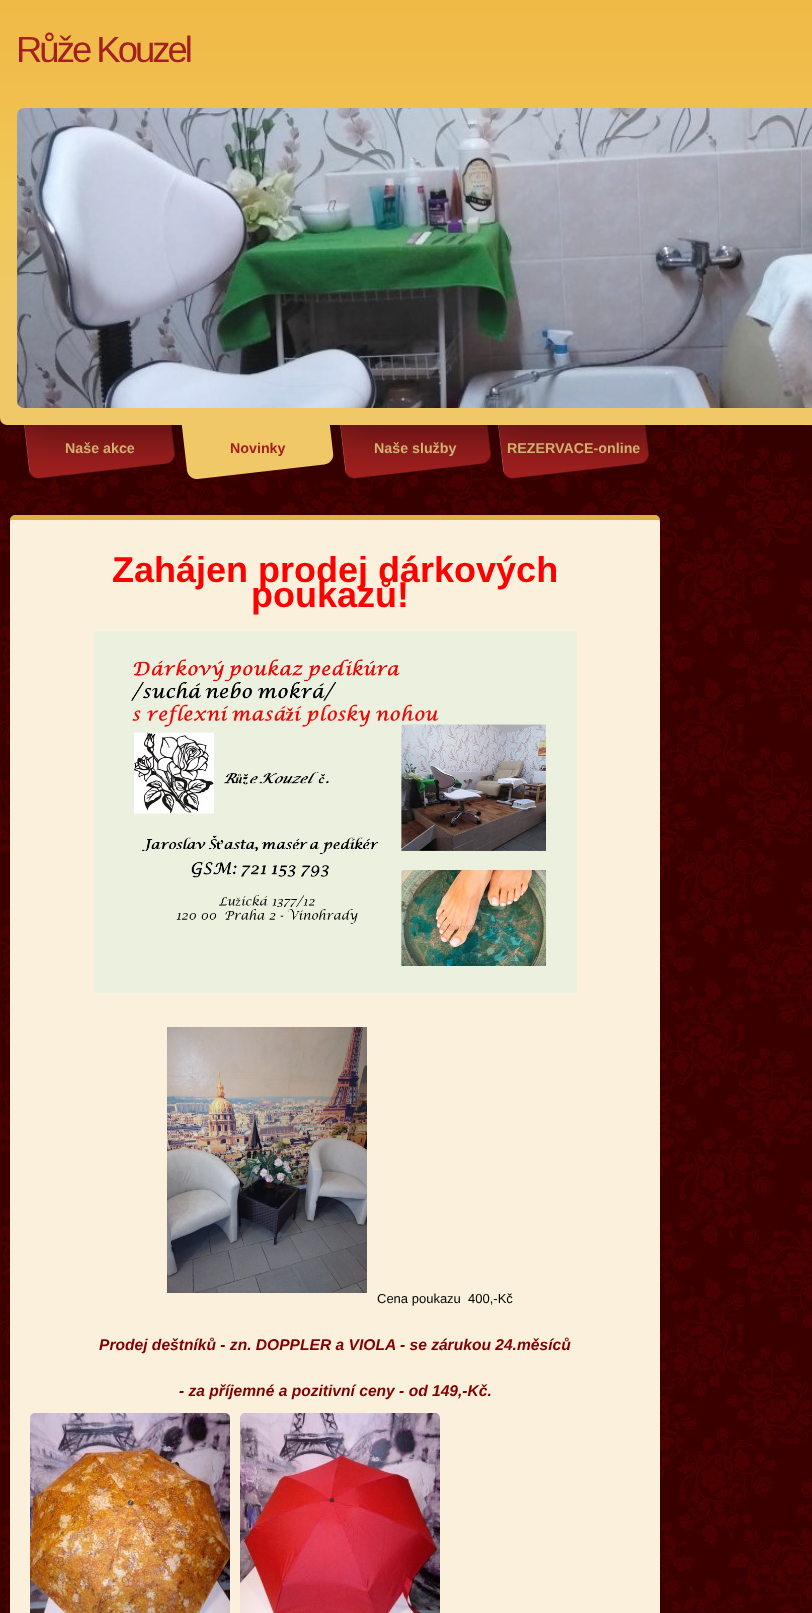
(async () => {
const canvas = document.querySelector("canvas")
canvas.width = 812
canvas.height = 1613
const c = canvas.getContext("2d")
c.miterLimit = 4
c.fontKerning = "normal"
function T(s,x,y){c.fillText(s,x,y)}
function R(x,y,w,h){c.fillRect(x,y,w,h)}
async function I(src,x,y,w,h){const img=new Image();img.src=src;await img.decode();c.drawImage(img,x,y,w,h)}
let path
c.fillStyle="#fff"
R(0,0,812,1613)
await I("1.png",0,600,812,1013)
await I("2.png",0,418,812,182)
await I("3.png",0,0,812,425)
c.letterSpacing="-3px"
c.font="36.5px Liberation Sans"
c.fillStyle="#a4201f"
T("Růže Kouzel",16,62)
await I("4.png",17,108,795,300)
await I("5.png",24,425,151,54)
c.letterSpacing="0px"
c.font="bold 14.25px Liberation Sans"
c.fillStyle="#d1b070"
T("Naše akce",65,453)
await I("6.png",181,425,153,54)
c.fillStyle="#a4201f"
T("Novinky",230,453)
await I("7.png",340,425,151,54)
c.fillStyle="#d1b070"
T("Naše služby",374,453)
await I("8.png",498,425,151,54)
T("REZERVACE-online",507,453)
c.fillStyle="#fbf0dc"
path = new Path2D("M17 515h636c4 0 7 3 7 7v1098h-650v-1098c0-4 3-7 7-7z")
c.fill(path)
c.fillStyle="#e1b044"
c.beginPath()
c.roundRect(10,515,650,5,[5,5,0,0])
c.fill()
c.font="bold 36px Liberation Sans"
c.fillStyle="#f00"
T("Zahájen prodej dárkových",112,582)
T("poukazů!",251,607)
await I("9.png",94,631,483,362)
await I("10.png",167,1027,200,266)
c.font="13px Liberation Sans"
c.fillStyle="#000"
T("Cena poukazu  400,-Kč",377,1303)
c.font="italic bold 15.6px Liberation Sans"
c.fillStyle="#800000"
T("Prodej deštníků - zn. DOPPLER a VIOLA - se zárukou 24.měsíců",99,1350)
T("- za příjemné a pozitivní ceny - od 149,-Kč.",179,1396)
await I("11.png",30,1413,200,200)
await I("12.png",240,1413,200,200)
})()
